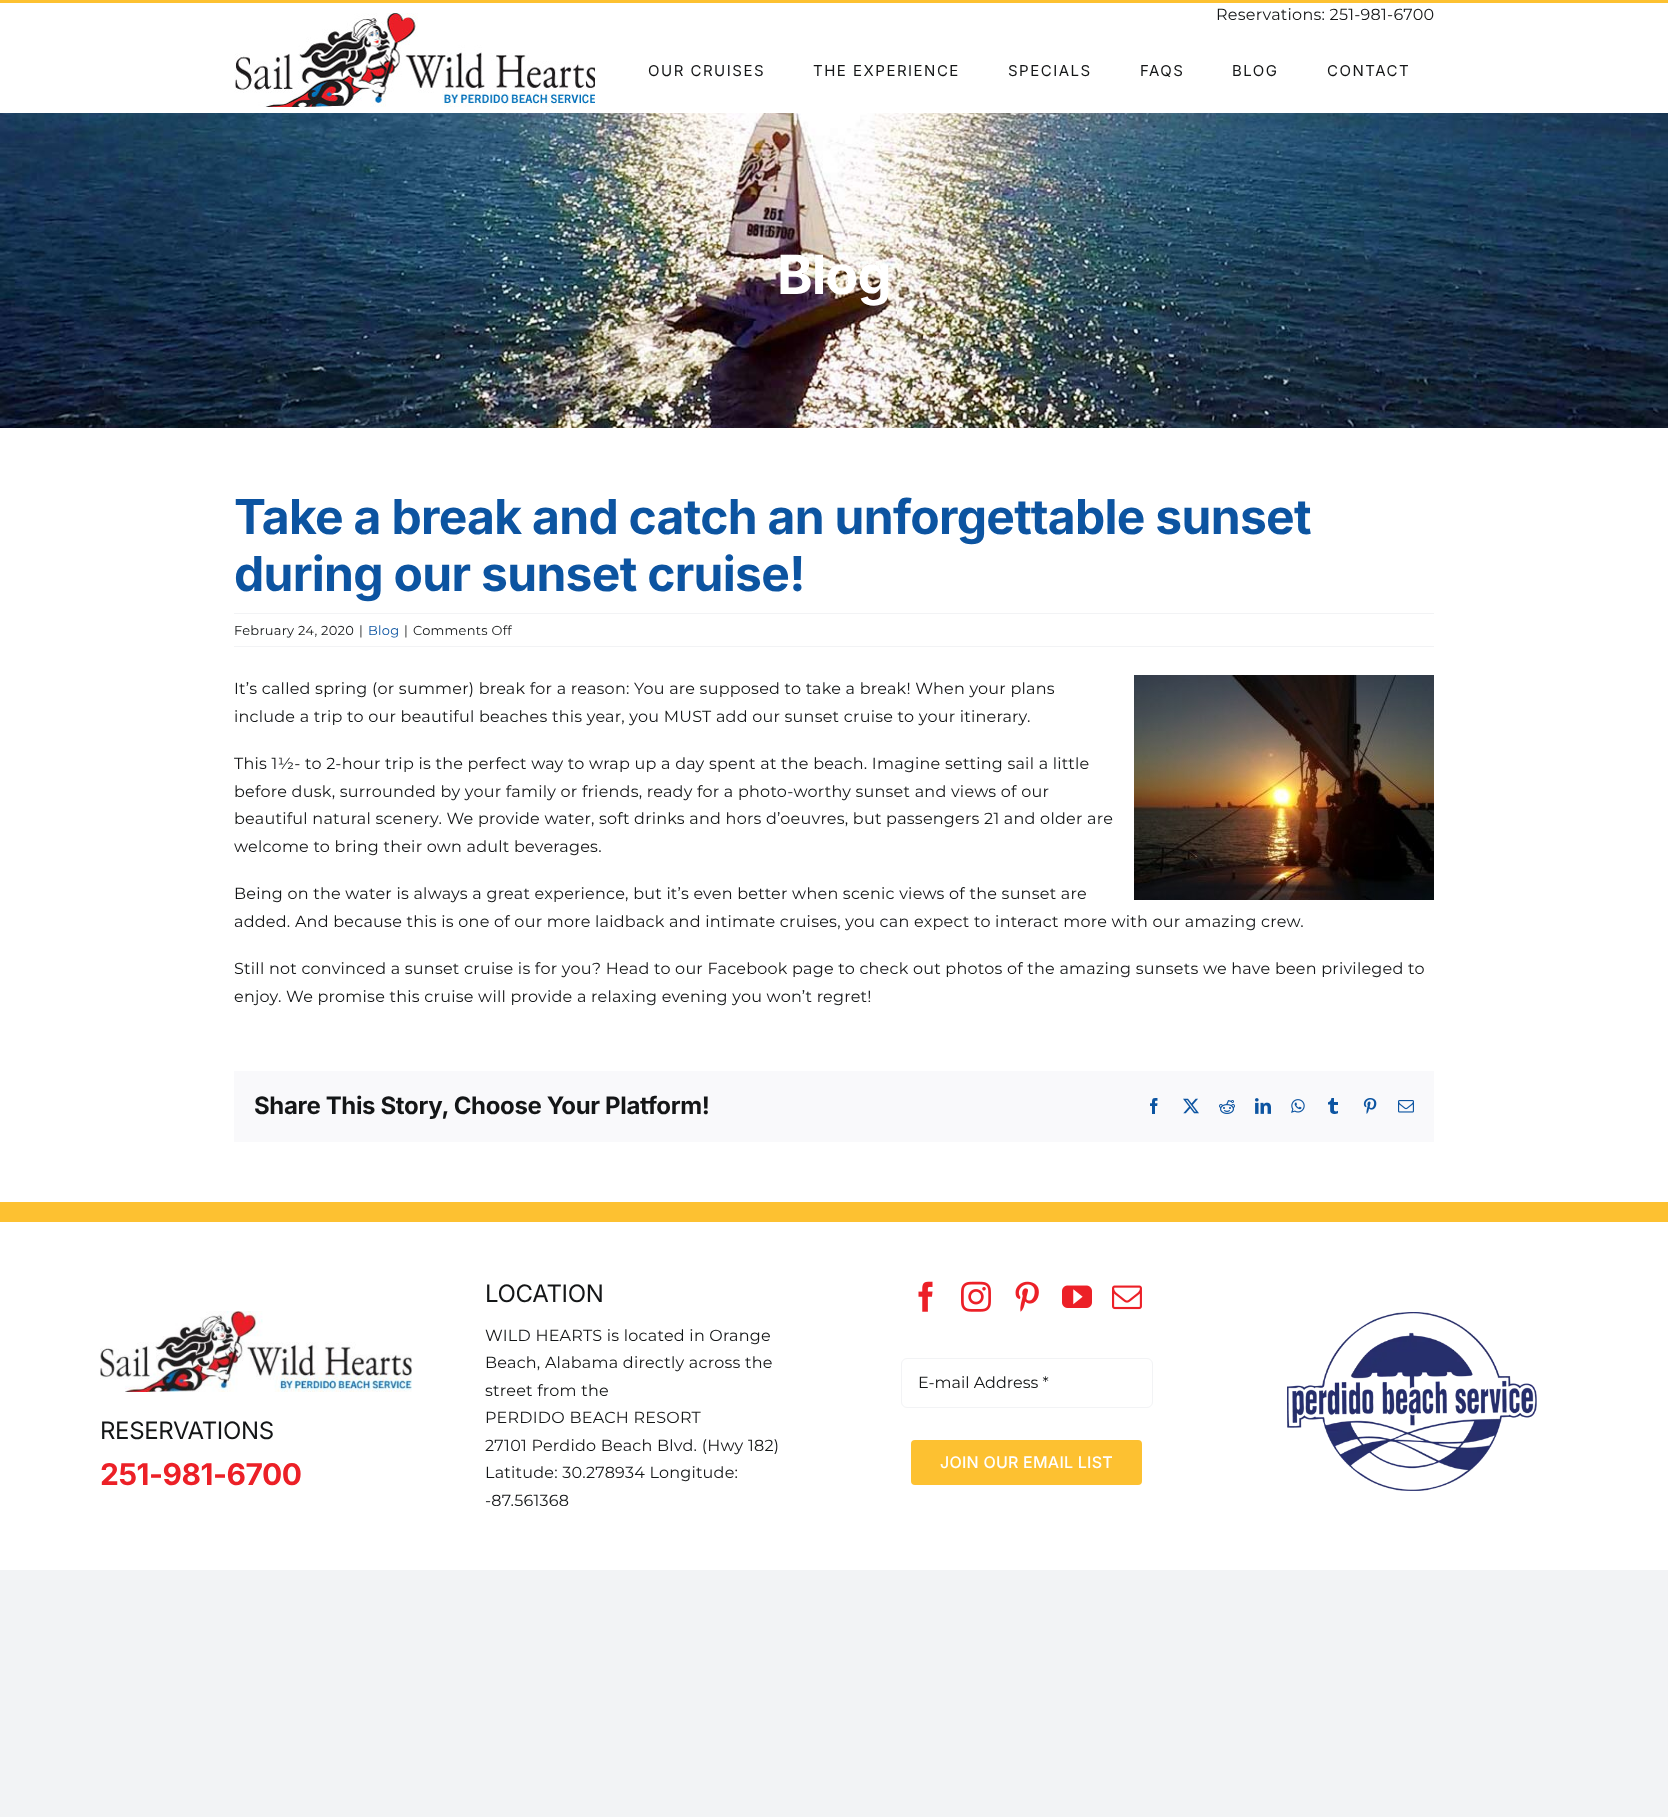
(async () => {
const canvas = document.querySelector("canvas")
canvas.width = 1668
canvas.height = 1817
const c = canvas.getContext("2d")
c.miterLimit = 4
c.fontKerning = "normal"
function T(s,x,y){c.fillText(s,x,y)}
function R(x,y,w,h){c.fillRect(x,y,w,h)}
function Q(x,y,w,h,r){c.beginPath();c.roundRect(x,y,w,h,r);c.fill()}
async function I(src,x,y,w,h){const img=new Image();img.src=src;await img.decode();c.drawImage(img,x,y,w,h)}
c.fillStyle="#f2f3f5"
R(0,0,1668,1817)
c.fillStyle="#fff"
R(0,3,1668,1567)
c.fillStyle="#fdc131"
R(0,0,1668,3)
c.letterSpacing="0.24px"
c.font="16px Montserrat"
c.fillStyle="#141617"
T("Reservations: 251-981-6700",1216,20)
await I("1.png",234,13,361,94)
c.letterSpacing="1.5px"
c.font="15px Inter"
T("OUR CRUISES",648,76)
T("THE EXPERIENCE",813,76)
T("SPECIALS",1008,76)
T("FAQS",1140,76)
T("BLOG",1232,76)
T("CONTACT",1327,76)
await I("2.png",0,113,1668,315)
c.letterSpacing="-1px"
c.font="bold 54px Inter"
c.fillStyle="#fff"
T("Blog",777,294)
c.letterSpacing="-0.7px"
c.font="bold 48px Inter"
c.fillStyle="#0c54a1"
T("Take a break and catch an unforgettable sunset",234,534)
T("during our sunset cruise!",234,591)
c.fillStyle="#f2f3f5"
R(234,613,1200,1)
R(234,646,1200,1)
c.letterSpacing="0.24px"
c.font="13px Montserrat"
c.fillStyle="#141617"
T("February 24, 2020",234,635)
T("|",359,635)
c.fillStyle="#0c54a1"
T("Blog",368,635)
c.fillStyle="#141617"
T("|",404,635)
T("Comments Off",413,635)
c.font="16px Montserrat"
T("It’s called spring (or summer) break for a reason: You are supposed to take a break! When your plans",234,694)
await I("3.png",1134,675,300,225)
T("include a trip to our beautiful beaches this year, you MUST add our sunset cruise to your itinerary.",234,722)
T("This 1½- to 2-hour trip is the perfect way to wrap up a day spent at the beach. Imagine setting sail a little",234,769)
T("before dusk, surrounded by your family or friends, ready for a photo-worthy sunset and views of our",234,797)
T("beautiful natural scenery. We provide water, soft drinks and hors d’oeuvres, but passengers 21 and older are",234,824)
T("welcome to bring their own adult beverages.",234,852)
T("Being on the water is always a great experience, but it’s even better when scenic views of the sunset are",234,899)
T("added. And because this is one of our more laidback and intimate cruises, you can expect to interact more with our amazing crew.",234,927)
T("Still not convinced a sunset cruise is for you? Head to our Facebook page to check out photos of the amazing sunsets we have been privileged to",234,974)
T("enjoy. We promise this cruise will provide a relaxing evening you won’t regret!",234,1002)
c.fillStyle="#f9f9fb"
R(234,1071,1200,71)
c.letterSpacing="-0.35px"
c.font="bold 24px Inter"
c.fillStyle="#141617"
T("Share This Story, Choose Your Platform!",254,1114)
await I("4.png",1150,1098,8,16)
await I("5.png",1183,1098,16,16)
await I("6.png",1219,1100,16,14)
await I("7.png",1255,1098,16,16)
await I("8.png",1291,1099,14,14)
await I("9.png",1328,1098,10,16)
await I("10.png",1363,1098,14,16)
await I("11.png",1398,1100,16,13)
c.fillStyle="#fdc131"
R(0,1202,1668,20)
await I("12.png",100,1311,312,81)
c.font="24px Inter"
c.fillStyle="#141617"
T("RESERVATIONS",100,1439)
c.letterSpacing="-0.5px"
c.font="bold 30px Inter"
c.fillStyle="#ec2027"
T("251-981-6700",100,1485)
c.letterSpacing="-0.35px"
c.font="24px Inter"
c.fillStyle="#141617"
T("LOCATION",485,1302)
c.letterSpacing="0.24px"
c.font="16px Montserrat"
T("WILD HEARTS is located in Orange",485,1341)
T("Beach, Alabama directly across the",485,1368)
T("street from the",485,1396)
T("PERDIDO BEACH RESORT",485,1423)
T("27101 Perdido Beach Blvd. (Hwy 182)",485,1451)
T("Latitude: 30.278934 Longitude:",485,1478)
T("-87.561368",485,1506)
await I("13.png",918,1281,15,31)
await I("14.png",961,1281,30,31)
await I("15.png",1015,1281,24,31)
await I("16.png",1062,1285,30,23)
await I("17.png",1112,1285,30,25)
c.beginPath()
c.roundRect(901.5,1358.5,251,49,5.5)
c.strokeStyle="#f2f3f5"
c.stroke()
c.letterSpacing="0px"
T("E-mail Address *",918,1388)
c.fillStyle="#fdc131"
Q(911,1440,231,45,4)
c.letterSpacing="0.24px"
c.font="500 16px Inter"
c.fillStyle="#fff"
T("JOIN OUR EMAIL LIST",940,1468)
await I("18.png",1287,1312,250,179)
})()
